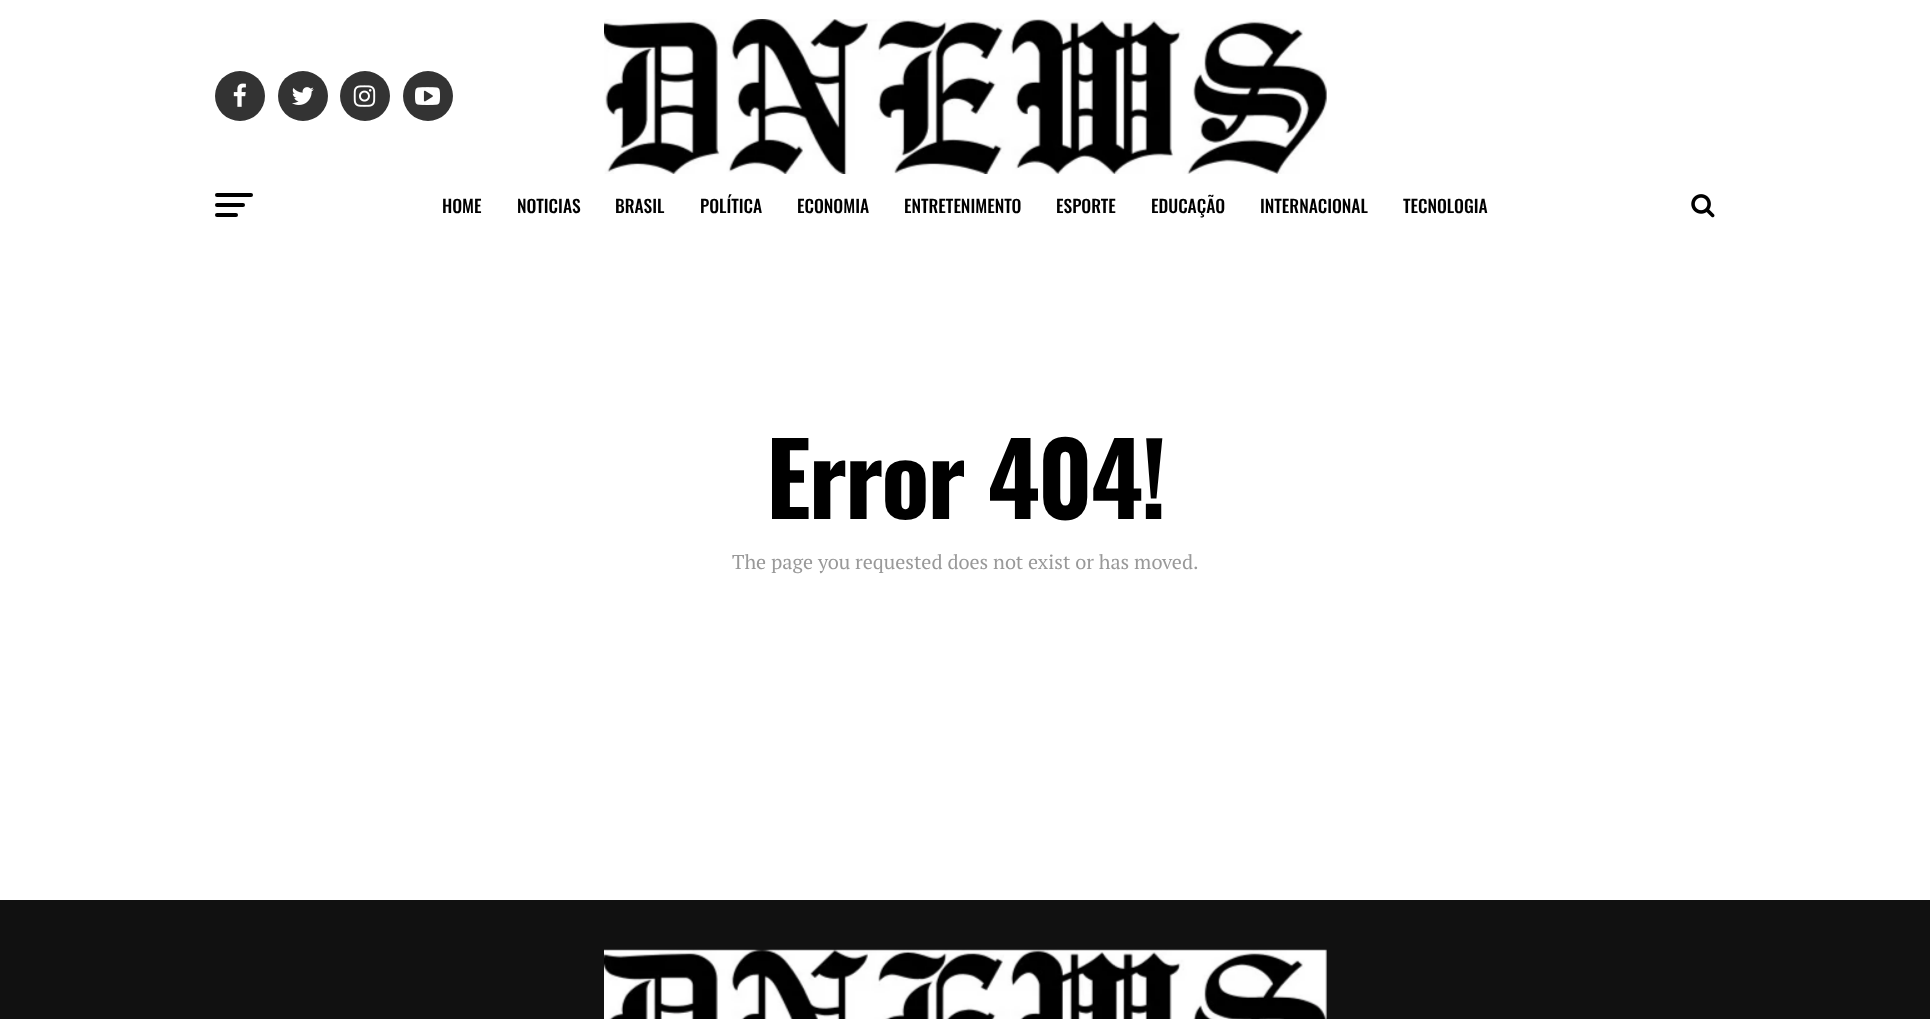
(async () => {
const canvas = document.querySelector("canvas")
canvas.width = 1930
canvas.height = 1019
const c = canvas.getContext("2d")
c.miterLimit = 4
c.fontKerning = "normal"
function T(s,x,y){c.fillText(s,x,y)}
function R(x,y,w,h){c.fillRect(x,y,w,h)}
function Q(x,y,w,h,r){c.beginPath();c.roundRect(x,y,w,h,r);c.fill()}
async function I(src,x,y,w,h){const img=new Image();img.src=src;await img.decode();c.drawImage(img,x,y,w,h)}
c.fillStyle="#fff"
R(0,0,1930,1019)
c.fillStyle="#333"
c.beginPath()
c.arc(240,96,25,0,7)
c.fill()
await I("1.png",233,83,13,24)
c.beginPath()
c.arc(303,96,25,0,7)
c.fill()
await I("2.png",292,87,22,18)
c.beginPath()
c.arc(365,96,25,0,7)
c.fill()
await I("3.png",353,85,23,22)
c.beginPath()
c.arc(428,96,25,0,7)
c.fill()
await I("4.png",415,87,25,18)
await I("5.png",604,19,723,155)
c.fillStyle="#000"
Q(215,193,38,4,2)
Q(215,203,30,4,2)
Q(215,213,23,4,2)
c.font="500 17.5px Oswald"
T("HOME",442,213)
T("NOTICIAS",517,213)
T("BRASIL",615,213)
T("POLÍTICA",700,213)
T("ECONOMIA",797,213)
T("ENTRETENIMENTO",904,213)
T("ESPORTE",1056,213)
T("EDUCAÇÃO",1151,213)
T("INTERNACIONAL",1260,213)
T("TECNOLOGIA",1403,213)
await I("6.png",1691,194,24,24)
c.letterSpacing="-2px"
c.font="bold 100px Oswald"
T("Error 404!",766,519)
c.letterSpacing="0px"
c.font="20px PT Serif"
c.fillStyle="#999"
T("The page you requested does not exist or has moved.",732,569)
c.fillStyle="#111"
R(0,900,1930,119)
await I("7.png",604,949,723,70)
})()
